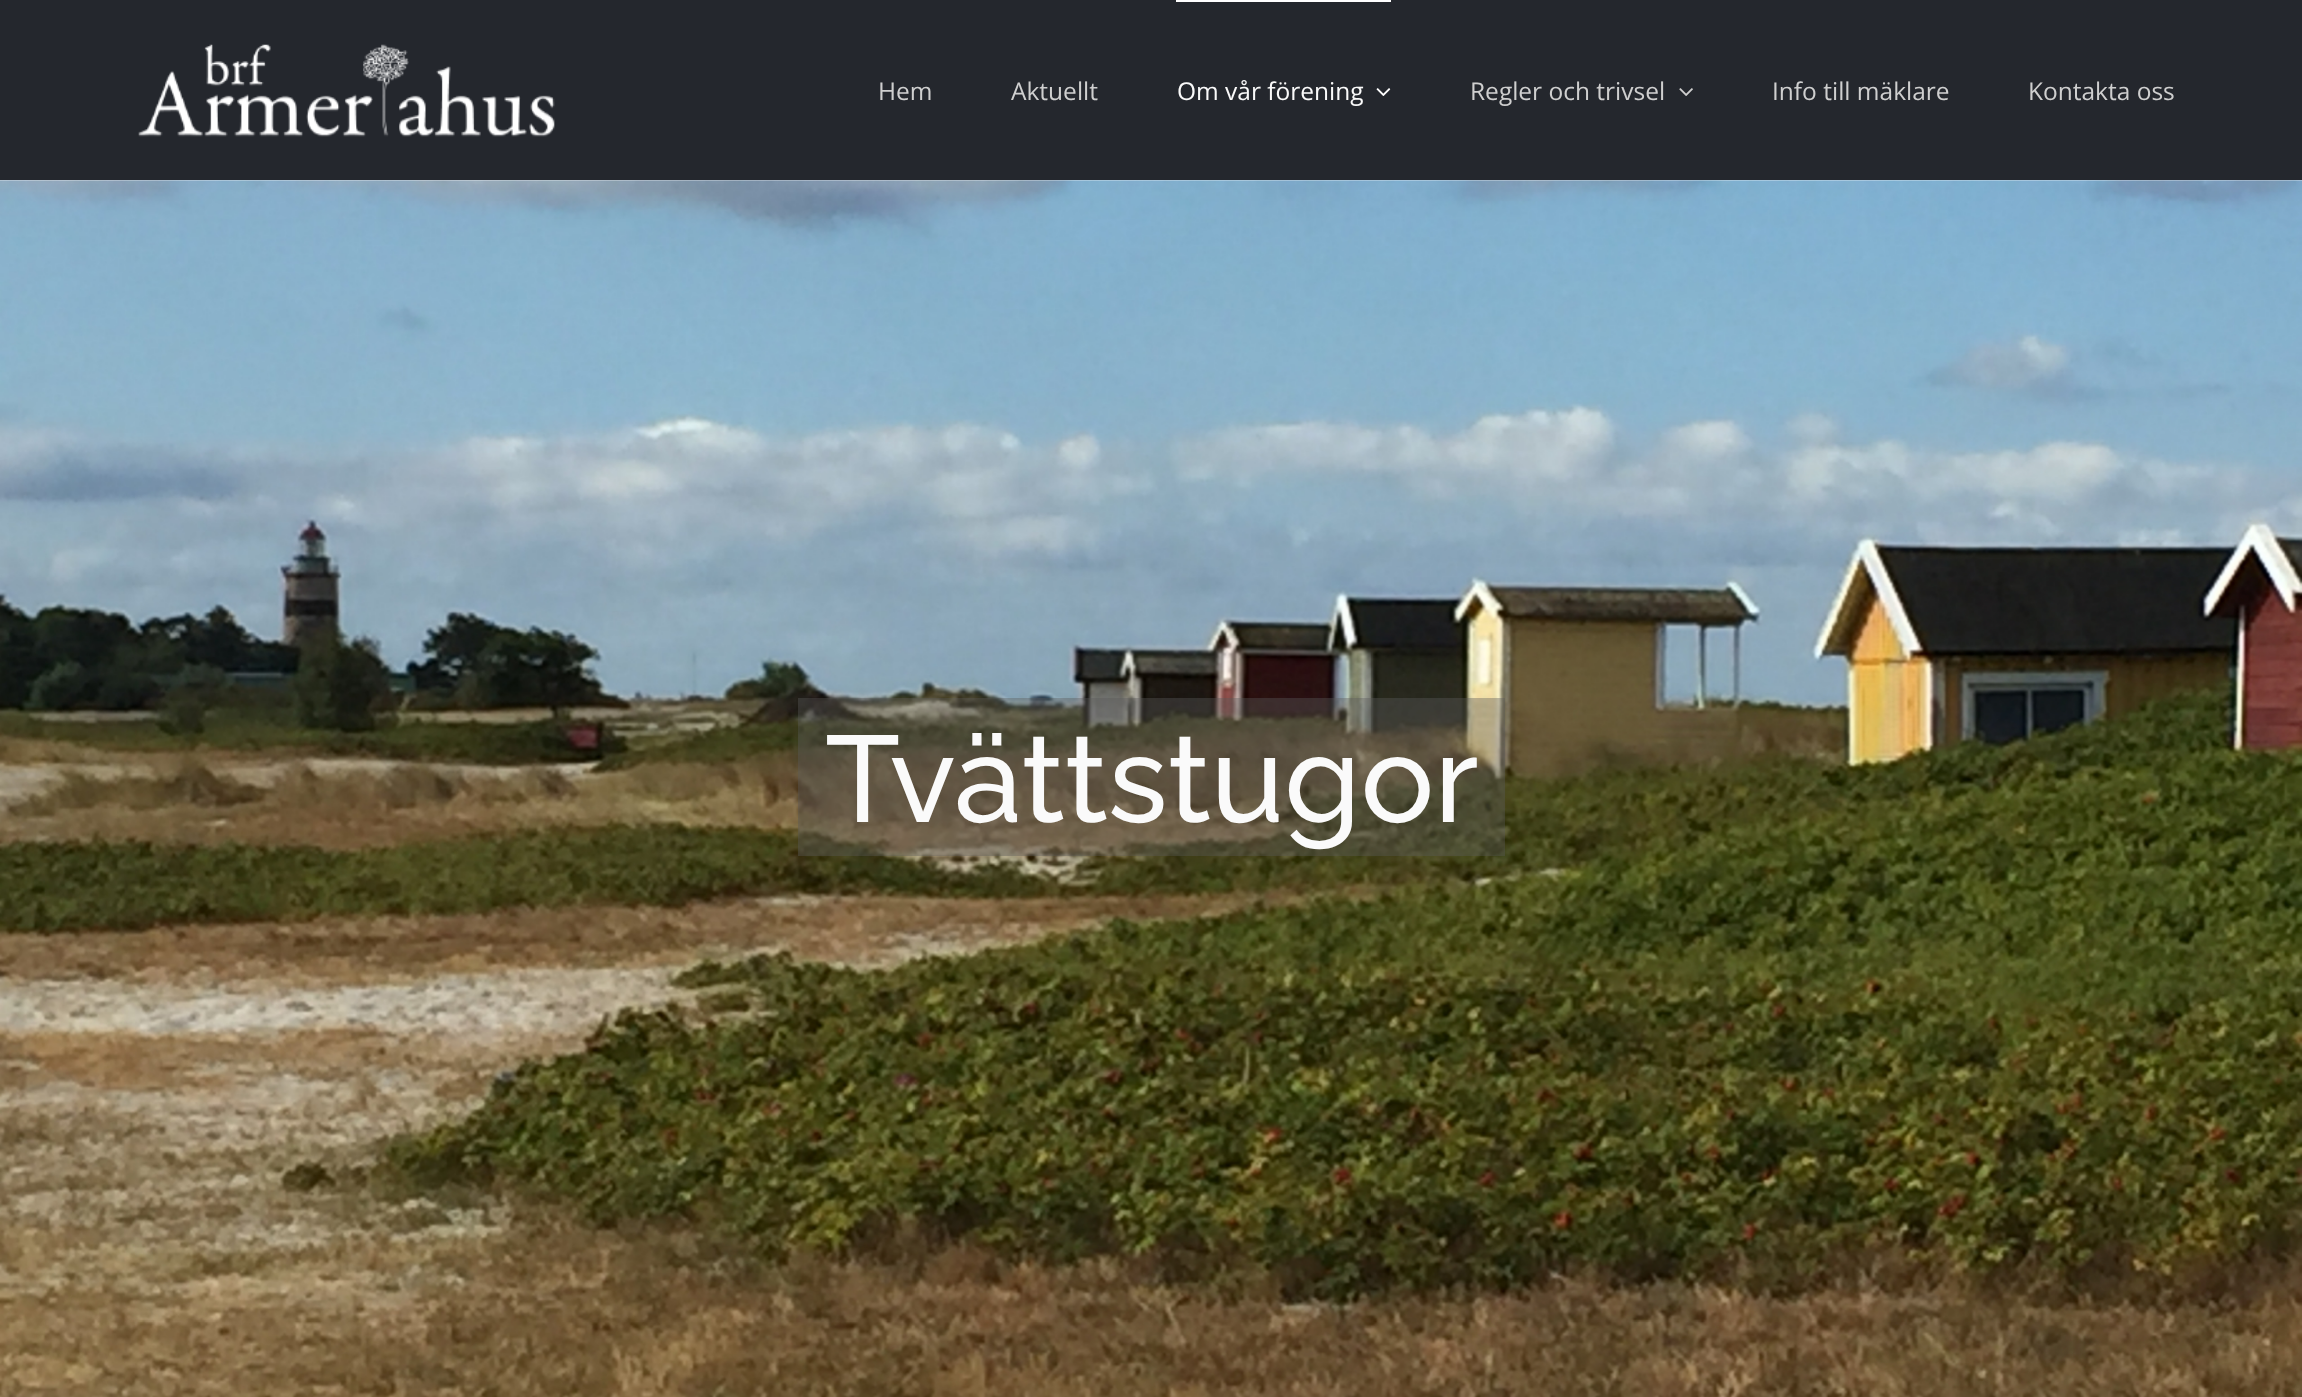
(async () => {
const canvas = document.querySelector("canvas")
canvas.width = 2302
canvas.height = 1397
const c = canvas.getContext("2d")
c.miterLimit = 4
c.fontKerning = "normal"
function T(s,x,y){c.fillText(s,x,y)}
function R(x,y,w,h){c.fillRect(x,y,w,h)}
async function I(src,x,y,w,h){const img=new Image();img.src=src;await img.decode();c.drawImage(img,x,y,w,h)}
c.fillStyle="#fff"
R(0,0,2302,1397)
c.fillStyle="#24272d"
R(0,0,2302,180)
await I("1.png",138,44,417,93)
c.font="24.5px Open Sans"
c.fillStyle="#cfcfcf"
T("Hem",878,100)
T("Aktuellt",1011,100)
c.fillStyle="#fff"
R(1176,0,215,2)
c.fillStyle="#fafafa"
T("Om vår förening",1177,100)
await I("2.png",1376,88,15,8)
c.fillStyle="#cfcfcf"
T("Regler och trivsel",1470,100)
await I("3.png",1679,88,14,8)
T("Info till mäklare",1772,100)
T("Kontakta oss",2028,100)
await I("4.png",0,180,2302,1217)
c.fillStyle="#5b5b5b63"
R(798,698,707,158)
c.font="100 122.5px Raleway"
c.fillStyle="#fafafa"
T("Tvättstugor",825,822)
})()
